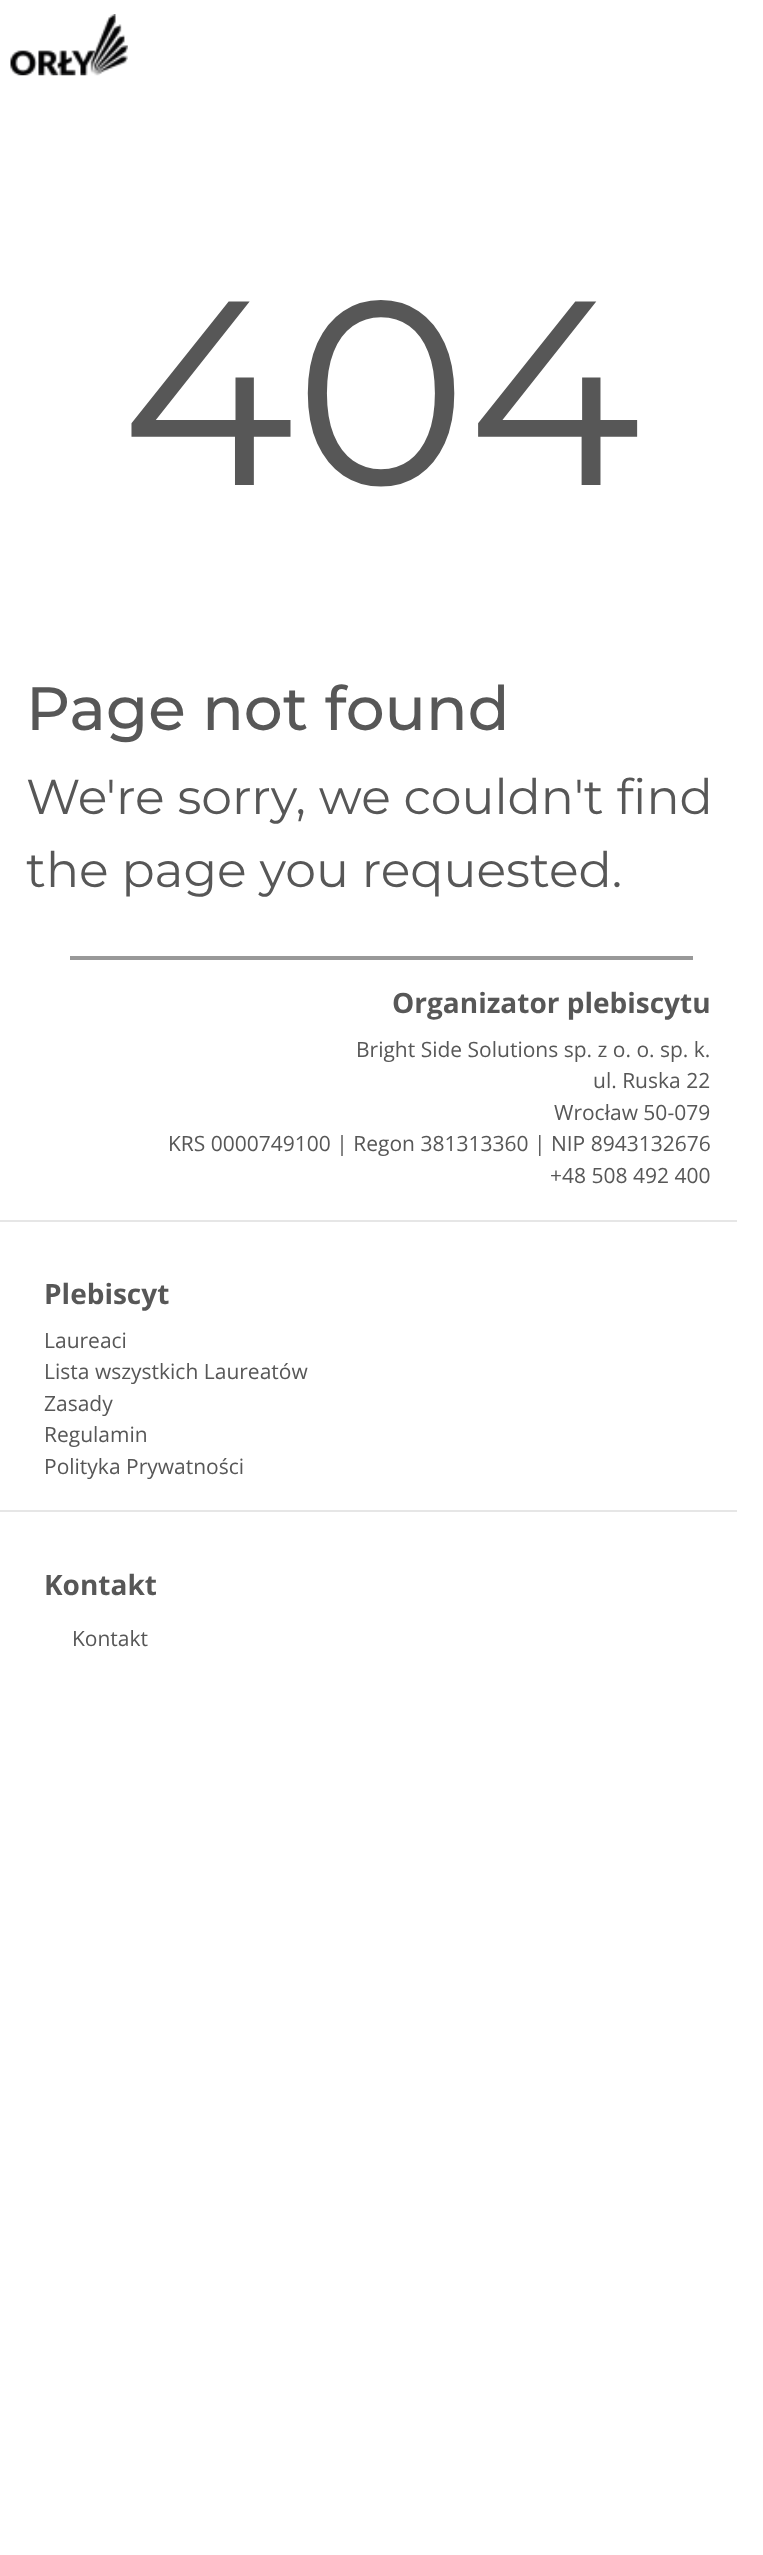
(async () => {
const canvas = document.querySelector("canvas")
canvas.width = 763
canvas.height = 2555
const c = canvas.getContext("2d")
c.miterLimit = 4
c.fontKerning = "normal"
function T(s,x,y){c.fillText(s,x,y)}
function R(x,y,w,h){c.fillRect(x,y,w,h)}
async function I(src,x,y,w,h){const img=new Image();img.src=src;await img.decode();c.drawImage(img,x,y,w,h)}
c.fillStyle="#fff"
R(0,0,763,2555)
await I("1.png",10,14,118,62)
c.font="262px Montserrat"
c.fillStyle="#575757"
T("404",121,485)
c.font="500 61.25px Montserrat"
T("Page not found",26,730)
c.font="49px Montserrat"
T("We're sorry, we couldn't find",26,814)
T("the page you requested.",26,887)
c.fillStyle="#999"
R(70,956,623,4)
c.font="bold 28px Open Sans"
c.fillStyle="#575757"
T("Organizator plebiscytu",392,1013)
c.font="21px Open Sans"
T("Bright Side Solutions sp. z o. o. sp. k.",356,1057)
T("ul. Ruska 22",593,1088)
T("Wrocław 50-079",554,1120)
T("KRS 0000749100 | Regon 381313360 | NIP 8943132676",168,1151)
T("+48 508 492 400",550,1183)
c.fillStyle="#e6e6e6"
R(0,1220,737,2)
c.font="bold 28px Open Sans"
c.fillStyle="#575757"
T("Plebiscyt",44,1304)
c.font="21px Open Sans"
T("Laureaci",44,1348)
T("Lista wszystkich Laureatów",44,1379)
T("Zasady",44,1411)
T("Regulamin",44,1442)
T("Polityka Prywatności",44,1474)
c.fillStyle="#e6e6e6"
R(0,1510,737,2)
c.font="bold 28px Open Sans"
c.fillStyle="#575757"
T("Kontakt",44,1595)
c.font="21px Open Sans"
T("Kontakt",72,1646)
})()
